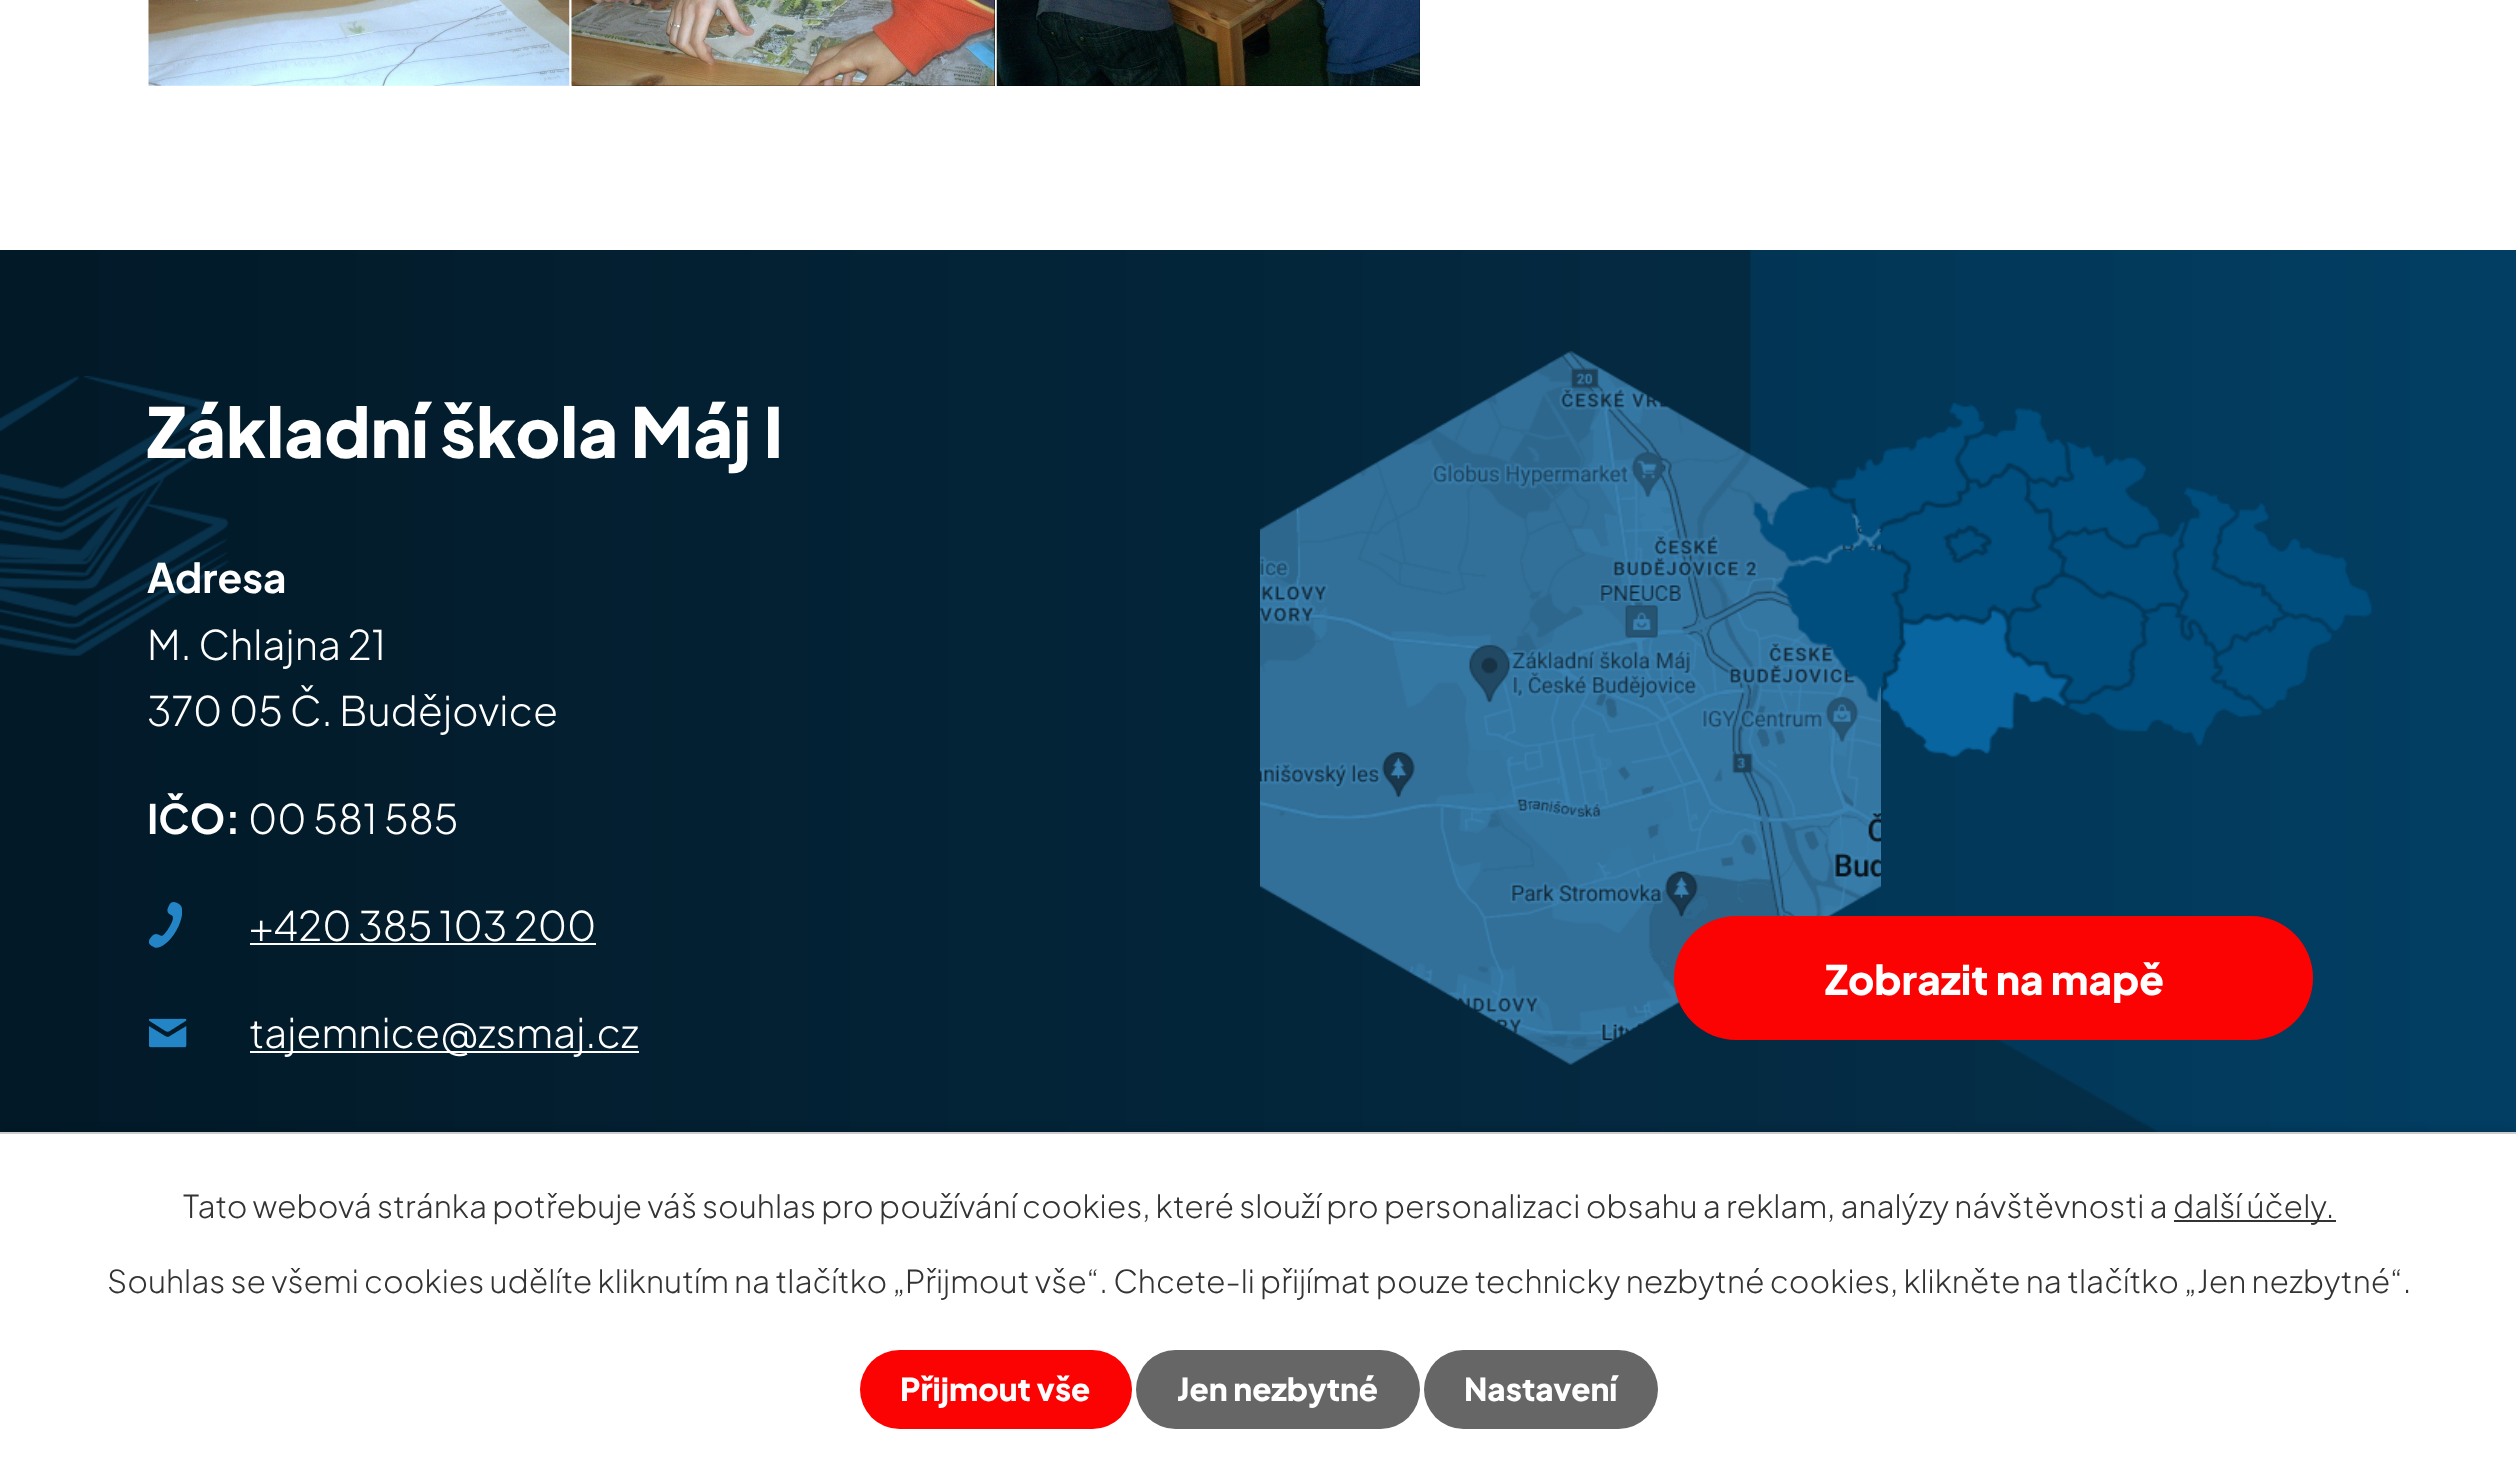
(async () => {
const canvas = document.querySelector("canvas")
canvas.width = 2516
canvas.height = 1471
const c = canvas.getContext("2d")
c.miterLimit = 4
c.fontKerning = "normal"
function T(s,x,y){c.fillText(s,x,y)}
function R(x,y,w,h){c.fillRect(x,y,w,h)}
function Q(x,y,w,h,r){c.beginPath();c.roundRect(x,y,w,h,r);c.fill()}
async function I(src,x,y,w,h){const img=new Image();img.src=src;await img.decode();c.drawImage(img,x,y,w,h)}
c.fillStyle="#fff"
R(0,0,2516,1471)
await I("1.png",148,0,422,86)
c.fillStyle="#000"
R(572,0,423,86)
await I("2.png",571,0,424,86)
R(997,0,423,86)
await I("3.png",996,0,424,86)
await I("4.png",0,250,2516,882)
await I("5.png",0,376,229,280)
c.font="800 68.75px Plus Jakarta Sans"
c.fillStyle="#fff"
T("Základní škola Máj I",147,458)
c.font="bold 40.5px Plus Jakarta Sans"
T("Adresa",147,593)
c.font="300 40.5px Plus Jakarta Sans"
T("M. Chlajna 21",147,660)
T("370 05 Č. Budějovice",147,726)
c.font="bold 40.5px Plus Jakarta Sans"
T("IČO:",147,834)
c.font="300 40.5px Plus Jakarta Sans"
T("00 581 585",248,834)
await I("6.png",149,902,33,46)
T("+420 385 103 200",249,941)
R(250,943,346,2)
await I("7.png",149,1018,38,30)
R(250,1051,389,2)
T("tajemnice@zsmaj.cz",249,1048)
await I("8.png",1260,351,621,714)
await I("9.png",1752,403,620,354)
c.fillStyle="#fb0303"
Q(1674,916,639,124,62)
c.font="800 40.5px Plus Jakarta Sans"
c.fillStyle="#fff"
T("Zobrazit na mapě",1825,995)
c.fillStyle="#00000033"
c.filter="blur(5.5px)"
c.beginPath()
c.rect(0,1132,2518,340)
c.fill()
c.filter="none"
c.fillStyle="#fff"
R(0,1134,2516,337)
c.fillStyle="#ccc"
R(0,1132,2516,2)
c.font="300 31.5px Plus Jakarta Sans"
c.fillStyle="#333"
T("Tato webová stránka potřebuje váš souhlas pro používání cookies, které slouží pro personalizaci obsahu a reklam, analýzy návštěvnosti a",183,1218)
R(2174,1220,162,2)
T("další účely.",2173,1218)
T("Souhlas se všemi cookies udělíte kliknutím na tlačítko „Přijmout vše“. Chcete-li přijímat pouze technicky nezbytné cookies, klikněte na tlačítko „Jen nezbytné“.",107,1293)
c.fillStyle="#fb0303"
Q(860,1350,272,79,39.5)
c.font="800 31.5px Plus Jakarta Sans"
c.fillStyle="#fff"
T("Přijmout vše",900,1401)
c.fillStyle="#666"
Q(1136,1350,284,79,39.5)
c.fillStyle="#fff"
T("Jen nezbytné",1177,1401)
c.fillStyle="#666"
Q(1424,1350,234,79,39.5)
c.fillStyle="#fff"
T("Nastavení",1464,1401)
})()
